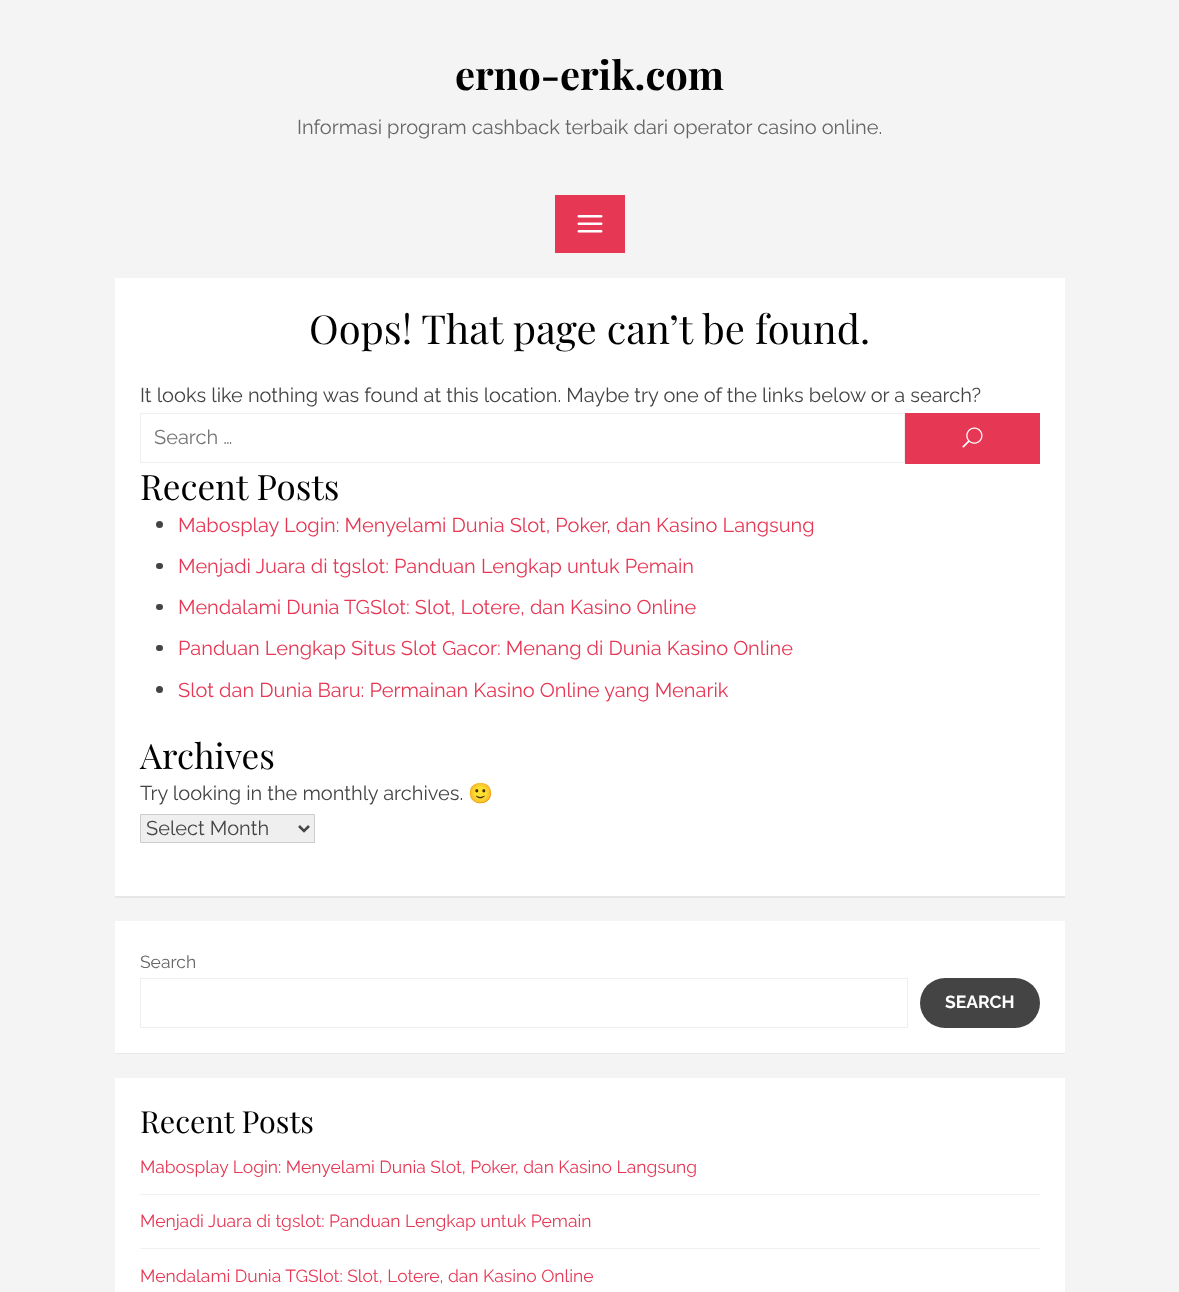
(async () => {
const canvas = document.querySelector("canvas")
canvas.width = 1179
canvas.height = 1292
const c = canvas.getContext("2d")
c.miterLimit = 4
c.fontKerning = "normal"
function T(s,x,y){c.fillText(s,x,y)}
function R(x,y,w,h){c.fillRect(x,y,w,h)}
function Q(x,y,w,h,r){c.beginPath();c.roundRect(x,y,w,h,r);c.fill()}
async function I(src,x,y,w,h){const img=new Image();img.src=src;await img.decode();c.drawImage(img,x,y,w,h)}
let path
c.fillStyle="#f4f4f4"
R(0,0,1179,1292)
c.font="bold 40px Playfair Display"
c.fillStyle="#000"
T("erno-erik.com",455,90)
c.font="20px Raleway"
c.fillStyle="#666"
T("Informasi program cashback terbaik dari operator casino online.",297,134)
c.fillStyle="#e63855"
R(555,195,70,58)
await I("1.png",577,215,26,18)
c.fillStyle="#0000000d"
c.filter="blur(0.5px)"
c.beginPath()
c.rect(115,279,950,619)
c.fill()
c.filter="none"
c.fillStyle="#fff"
R(115,278,950,618)
c.font="40px Playfair Display"
c.fillStyle="#000"
T("Oops! That page can’t be found.",309,344)
c.font="20px Raleway"
c.fillStyle="#444"
T("It looks like nothing was found at this location. Maybe try one of the links below or a search?",140,402)
c.strokeStyle="#eee"
c.strokeRect(140.5,413.5,764,49)
c.fillStyle="#757575"
T("Search …",154,444)
c.fillStyle="#e63855"
R(905,413,135,51)
await I("2.png",962,427,21,21)
c.font="35px Playfair Display"
c.fillStyle="#000"
T("Recent Posts",140,500)
c.fillStyle="#444"
c.beginPath()
c.arc(159.5,524.5,3.5,0,7)
c.fill()
c.font="20px Raleway"
c.fillStyle="#e63855"
T("Mabosplay Login: Menyelami Dunia Slot, Poker, dan Kasino Langsung",178,532)
c.fillStyle="#444"
Q(156,563,7,6,3)
c.fillStyle="#e63855"
T("Menjadi Juara di tgslot: Panduan Lengkap untuk Pemain",178,573)
c.fillStyle="#444"
Q(156,604,7,6,3)
c.fillStyle="#e63855"
T("Mendalami Dunia TGSlot: Slot, Lotere, dan Kasino Online",178,614)
c.fillStyle="#444"
Q(156,645,7,6,3)
c.fillStyle="#e63855"
T("Panduan Lengkap Situs Slot Gacor: Menang di Dunia Kasino Online",178,655)
c.fillStyle="#444"
c.beginPath()
c.arc(159.5,689.5,3.5,0,7)
c.fill()
c.fillStyle="#e63855"
T("Slot dan Dunia Baru: Permainan Kasino Online yang Menarik",178,697)
c.font="35px Playfair Display"
c.fillStyle="#000"
T("Archives",140,769)
c.font="20px Raleway"
c.fillStyle="#444"
T("Try looking in the monthly archives.",140,800)
c.font="20px Noto Color Emoji"
T("🙂",468,800)
c.fillStyle="#efefef"
c.beginPath()
c.rect(140.5,814.5,174,28)
c.fill()
c.strokeStyle="#ccc"
c.stroke()
path = new Path2D("M299 826l5 5l5-5")
c.strokeStyle="#444"
c.lineWidth=2.5
c.stroke(path)
c.font="20px Raleway"
c.fillStyle="#444"
T("Select Month",146,835)
c.fillStyle="#0000000d"
c.filter="blur(0.5px)"
c.beginPath()
c.rect(115,923,950,131)
c.fill()
c.filter="none"
c.fillStyle="#fff"
R(115,921,950,132)
c.font="17.5px Raleway"
c.fillStyle="#666"
T("Search",140,968)
c.strokeStyle="#eee"
c.lineWidth=1
c.strokeRect(140.5,978.5,767,49)
c.fillStyle="#444"
Q(920,978,120,50,25)
c.font="bold 17.5px Raleway"
c.fillStyle="#fff"
T("SEARCH",945,1008)
R(115,1078,950,214)
c.font="30.5px Playfair Display"
c.fillStyle="#000"
T("Recent Posts",140,1133)
c.fillStyle="#f2f2f2"
R(140,1194,900,1)
c.font="17.5px Raleway"
c.fillStyle="#e63855"
T("Mabosplay Login: Menyelami Dunia Slot, Poker, dan Kasino Langsung",140,1173)
c.fillStyle="#f2f2f2"
R(140,1248,900,1)
c.fillStyle="#e63855"
T("Menjadi Juara di tgslot: Panduan Lengkap untuk Pemain",140,1227)
T("Mendalami Dunia TGSlot: Slot, Lotere, dan Kasino Online",140,1282)
})()
